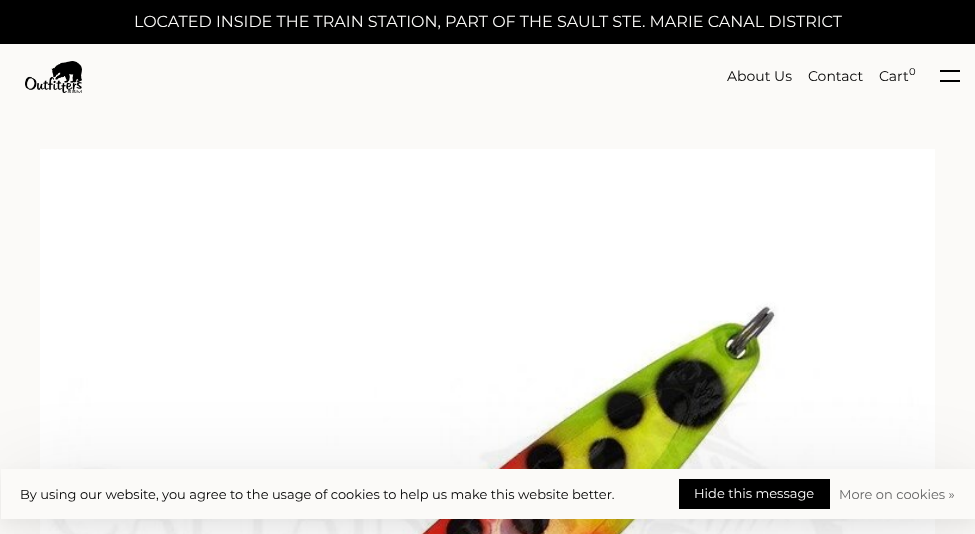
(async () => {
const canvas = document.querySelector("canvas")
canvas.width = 975
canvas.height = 534
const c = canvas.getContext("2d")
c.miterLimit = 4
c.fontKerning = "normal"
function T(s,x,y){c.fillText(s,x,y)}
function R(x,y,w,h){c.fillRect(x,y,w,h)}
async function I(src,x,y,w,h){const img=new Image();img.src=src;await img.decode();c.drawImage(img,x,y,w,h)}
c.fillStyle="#fbfaf8"
R(0,0,975,534)
c.fillStyle="#000"
R(0,0,975,44)
c.font="16px Montserrat"
c.fillStyle="#fbfaf8"
T("LOCATED INSIDE THE TRAIN STATION, PART OF THE SAULT STE. MARIE CANAL DISTRICT",134,27)
await I("1.png",25,61,57,32)
c.font="14px Montserrat"
c.fillStyle="#000"
T("About Us",727,81)
T("Contact",808,81)
T("Cart",879,81)
c.font="10px Montserrat"
T("0",909,75)
R(940,70,20,2)
R(940,80,20,2)
await I("2.png",40,149,895,385)
c.fillStyle="#0000000d"
c.filter="blur(7.5px)"
c.beginPath()
c.rect(1,475,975,50)
c.fill()
c.filter="none"
c.fillStyle="#00000026"
c.filter="blur(43px)"
c.beginPath()
c.rect(7,489,963,38)
c.fill()
c.filter="none"
c.fillStyle="#fbfaf8"
R(1,469,974,50)
c.font="13px Montserrat"
c.fillStyle="#000"
T("By using our website, you agree to the usage of cookies to help us make this website better.",20,499)
R(679,479,151,30)
c.fillStyle="#fff"
T("Hide this message",694,498)
c.fillStyle="#666"
T("More on cookies »",839,499)
})()
